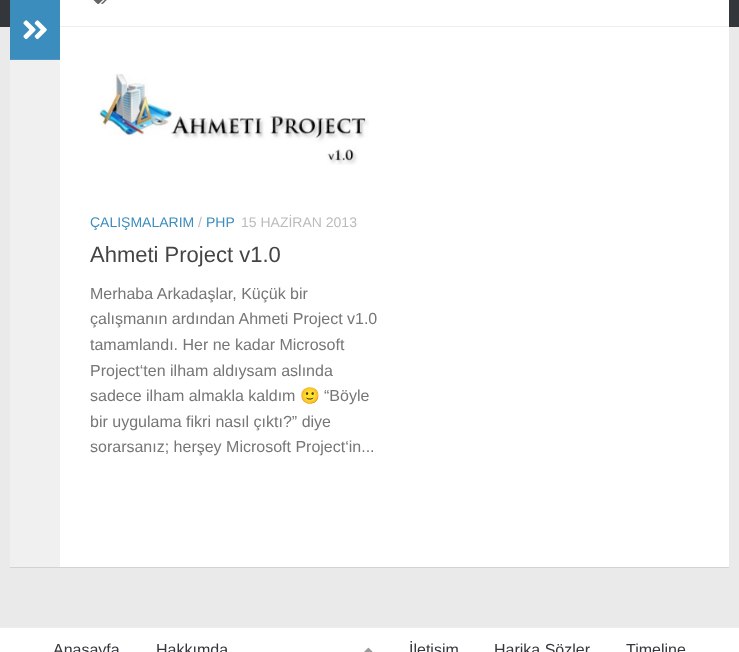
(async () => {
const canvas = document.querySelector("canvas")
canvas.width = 739
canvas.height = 652
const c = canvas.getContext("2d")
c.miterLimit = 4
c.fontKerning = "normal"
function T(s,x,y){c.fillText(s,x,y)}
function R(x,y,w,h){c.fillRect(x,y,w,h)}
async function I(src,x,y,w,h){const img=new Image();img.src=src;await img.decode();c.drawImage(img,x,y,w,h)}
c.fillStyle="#eaeaea"
R(0,0,739,652)
c.fillStyle="#0000001a"
c.filter="blur(0.5px)"
c.beginPath()
c.rect(10,-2,719,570)
c.fill()
c.filter="none"
c.fillStyle="#33363b"
R(0,0,739,27)
c.fillStyle="#fff"
R(60,0,669,567)
c.fillStyle="#f0f0f0"
R(10,60,50,507)
c.fillStyle="#3b8dbd"
R(10,0,50,59)
c.fillStyle="#4f98c4"
R(10,59,50,1)
await I("1.png",23,20,24,20)
c.fillStyle="#eee"
R(60,26,669,1)
await I("2.png",93,0,14,4)
await I("3.png",98,74,271,91)
c.font="14px Liberation Sans"
c.fillStyle="#3b8dbd"
T("ÇALIŞMALARIM",90,227)
c.fillStyle="#bbb"
T("/",198,227)
c.fillStyle="#3b8dbd"
T("PHP",206,227)
c.fillStyle="#bbb"
T("15 HAZİRAN 2013",241,227)
c.font="22px Liberation Sans"
c.fillStyle="#444"
T("Ahmeti Project v1.0",90,262)
c.font="16px Liberation Sans"
c.fillStyle="#767676"
T("Merhaba Arkadaşlar, Küçük bir",90,299)
T("çalışmanın ardından Ahmeti Project v1.0",90,324)
T("tamamlandı. Her ne kadar Microsoft",90,350)
T("Project‘ten ilham aldıysam aslında",90,376)
T("sadece ilham almakla kaldım",90,401)
c.font="16px Noto Color Emoji"
T("🙂",300,401)
c.font="16px Liberation Sans"
T("“Böyle",324,401)
T("bir uygulama fikri nasıl çıktı?” diye",90,427)
T("sorarsanız; herşey Microsoft Project‘in...",90,452)
c.fillStyle="#fff"
R(0,628,739,24)
c.fillStyle="#eee"
R(0,627,739,1)
c.fillStyle="#33363b"
T("Anasayfa",53,655)
T("Hakkımda",156,655)
await I("4.png",364,647,9,5)
T("İletişim",409,655)
T("Harika Sözler",494,655)
T("Timeline",626,655)
})()
